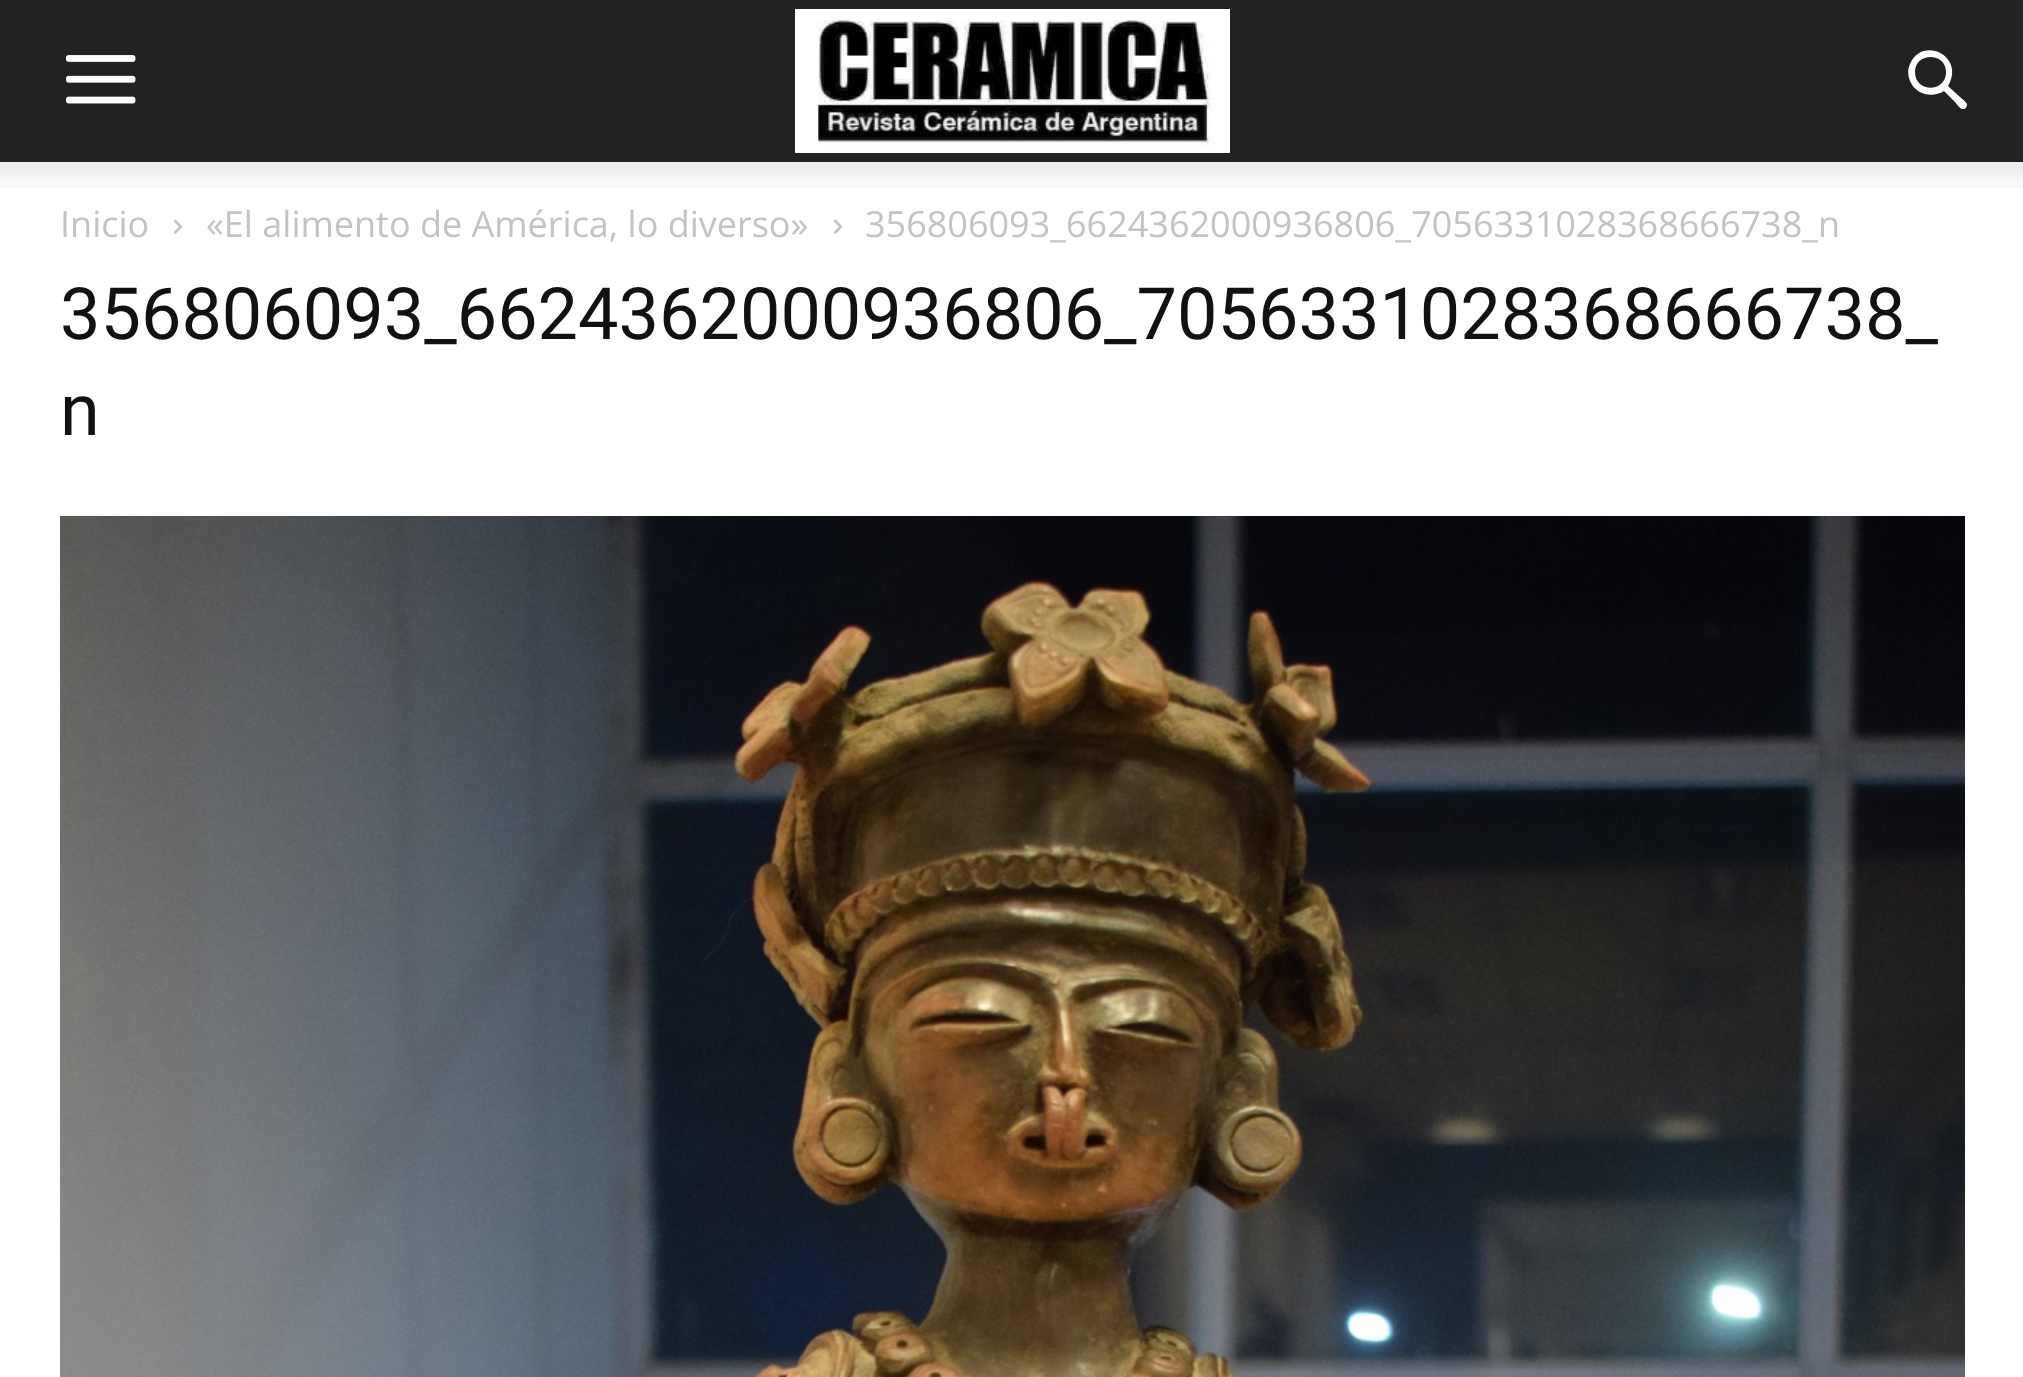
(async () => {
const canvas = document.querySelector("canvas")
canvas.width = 2023
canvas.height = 1377
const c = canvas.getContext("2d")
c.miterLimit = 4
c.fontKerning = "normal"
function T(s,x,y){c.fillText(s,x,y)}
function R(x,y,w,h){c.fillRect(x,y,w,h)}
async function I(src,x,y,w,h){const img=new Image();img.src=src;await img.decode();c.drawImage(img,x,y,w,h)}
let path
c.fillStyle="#fff"
R(0,0,2023,1377)
c.fillStyle="#222"
R(0,0,2023,162)
await I("1.png",66,55,70,49)
await I("2.png",795,9,435,144)
c.fillStyle="#fff"
path = new Path2D("M1946 72c0 21-31 21-31 0c0-20 31-20 31 0zm21 33c0-3-5-6-7-8l-12-11c18-30-26-51-38-22c-3 6-2 13 1 19c6 12 22 15 33 8l11 11c2 2 5 8 9 7c1 0 3-2 3-4z")
c.fill(path)
await I("3.png",0,162,2023,26)
c.font="36px Open Sans"
c.fillStyle="#c3c3c3"
T("Inicio",60,237)
await I("4.png",174,219,9,15)
T("«El alimento de América, lo diverso»",206,237)
await I("4.png",834,219,9,15)
T("356806093_6624362000936806_7056331028368666738_n",865,237)
c.font="72px Roboto"
c.fillStyle="#111"
T("356806093_6624362000936806_7056331028368666738_",60,339)
T("n",60,435)
await I("5.png",60,516,1905,861)
})()
